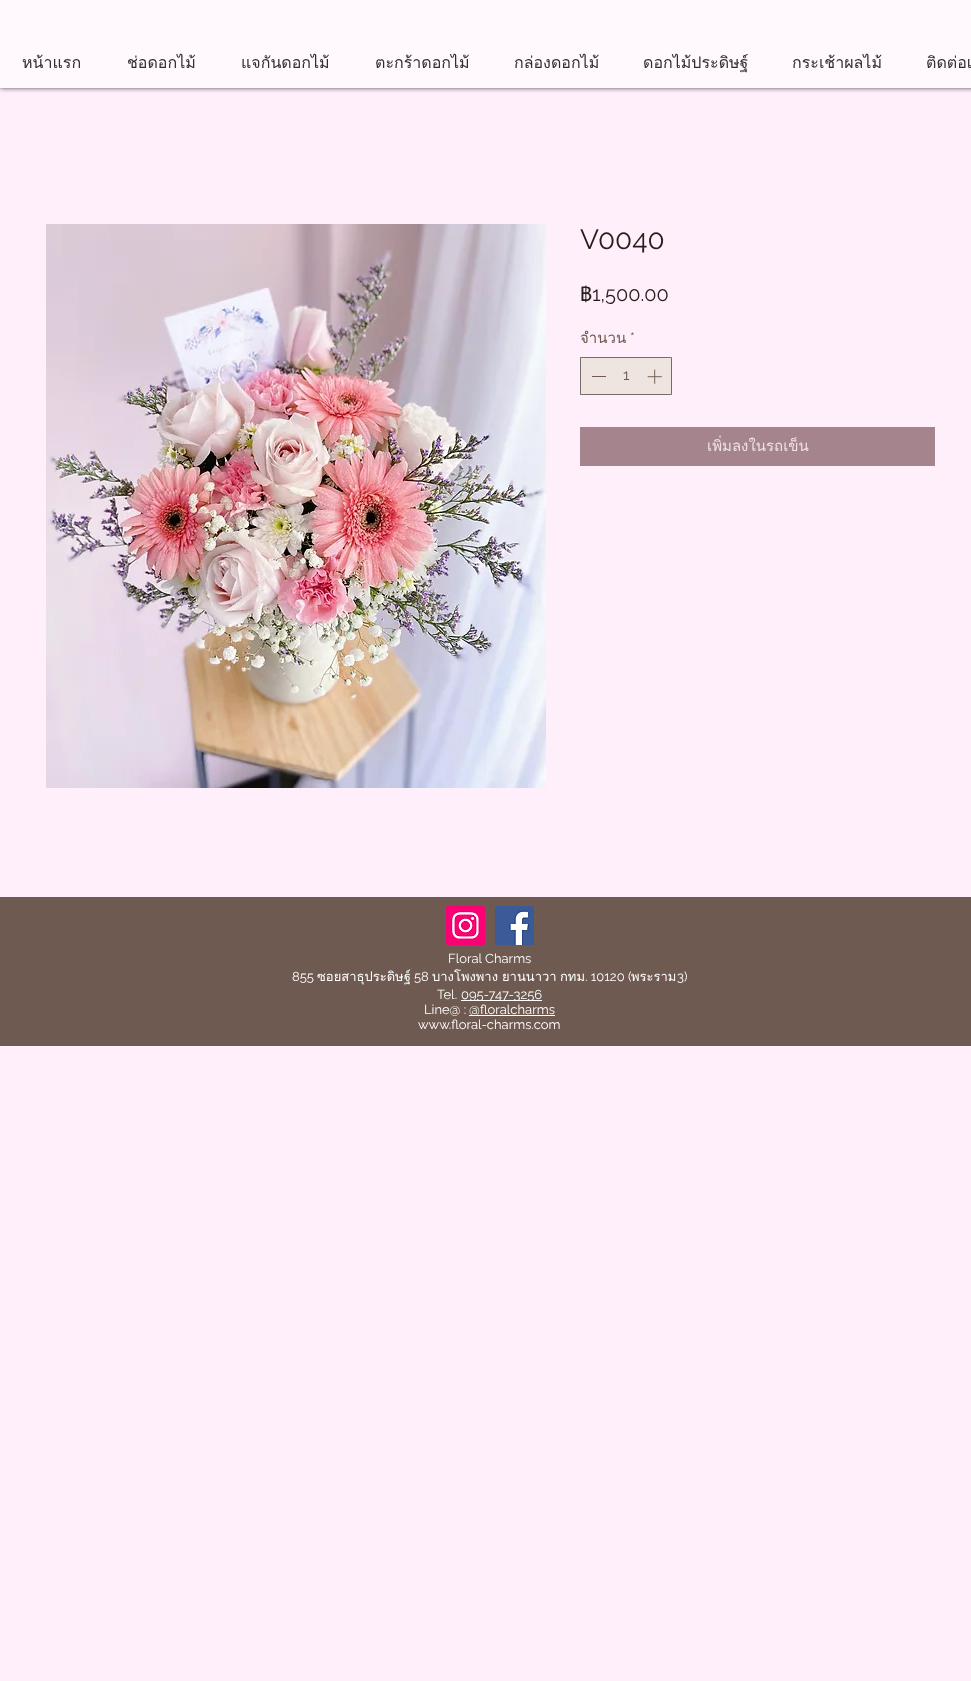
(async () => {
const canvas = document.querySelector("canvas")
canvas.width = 971
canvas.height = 1681
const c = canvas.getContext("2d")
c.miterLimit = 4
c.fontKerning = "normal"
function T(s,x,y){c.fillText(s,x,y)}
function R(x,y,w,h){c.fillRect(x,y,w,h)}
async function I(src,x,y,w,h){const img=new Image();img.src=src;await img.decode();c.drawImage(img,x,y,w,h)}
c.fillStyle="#ffeffb"
R(0,0,971,1681)
c.fillStyle="#000000b3"
c.filter="blur(2.5px)"
c.beginPath()
c.rect(0,0,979,88)
c.fill()
c.filter="none"
c.fillStyle="#fff9fd"
R(0,0,971,88)
c.font="16px Loma"
c.fillStyle="#332c2e"
T("หน้าแรก",22,68)
T("ช่อดอกไม้",127,68)
T("แจกันดอกไม้",241,68)
T("ตะกร้าดอกไม้",375,68)
T("กล่องดอกไม้",514,68)
T("ดอกไม้ประดิษฐ์",643,68)
T("กระเช้าผลไม้",792,68)
T("ติดต่อเ",926,68)
await I("1.png",46,224,500,564)
c.font="28px Raleway"
c.fillStyle="#251e1b"
T("V0040",580,249)
c.font="20px Loma"
T("฿",580,301)
c.font="20px Raleway"
T("1,500.00",592,301)
c.font="15px Loma"
c.fillStyle="#6e5a51"
T("จำนวน",580,343)
c.font="15px Raleway"
T("*",630,343)
c.fillStyle="#eee4e0"
c.beginPath()
c.rect(580.5,357.5,91,37)
c.fill()
c.strokeStyle="#756d6a"
c.stroke()
c.fillStyle="#6e5a51"
R(592,376,14,1)
T("1",623,380)
await I("2.png",647,369,15,15)
c.fillStyle="#a5848d"
R(580,427,355,39)
c.font="15px Loma"
c.fillStyle="#eee4e0"
T("เพิ่มลงในรถเข็น",707,451)
c.fillStyle="#6e5a51"
R(0,897,971,149)
await I("3.png",446,906,39,39)
await I("4.png",495,906,39,39)
c.font="13px Raleway"
c.fillStyle="#fff"
T("Floral Charms",448,963)
T("855",292,981)
c.font="13px Loma"
T("ซอยสาธุประดิษฐ์",317,981)
c.font="13px Raleway"
T("58",414,981)
c.font="13px Loma"
T("บางโพงพาง",432,981)
T("ยานนาวา",502,981)
T("กทม",560,981)
c.font="13px Raleway"
T(". 10120 (",585,981)
c.font="13px Loma"
T("พระราม",631,981)
c.font="13px Raleway"
T("3)",677,981)
T("Tel.",437,999)
R(461,1000,81,1)
T("095-747-3256",461,999)
T("Line@ :",424,1014)
R(469,1015,86,1)
T("@floralcharms",469,1014)
T("www.floral-charms.com",418,1029)
})()
